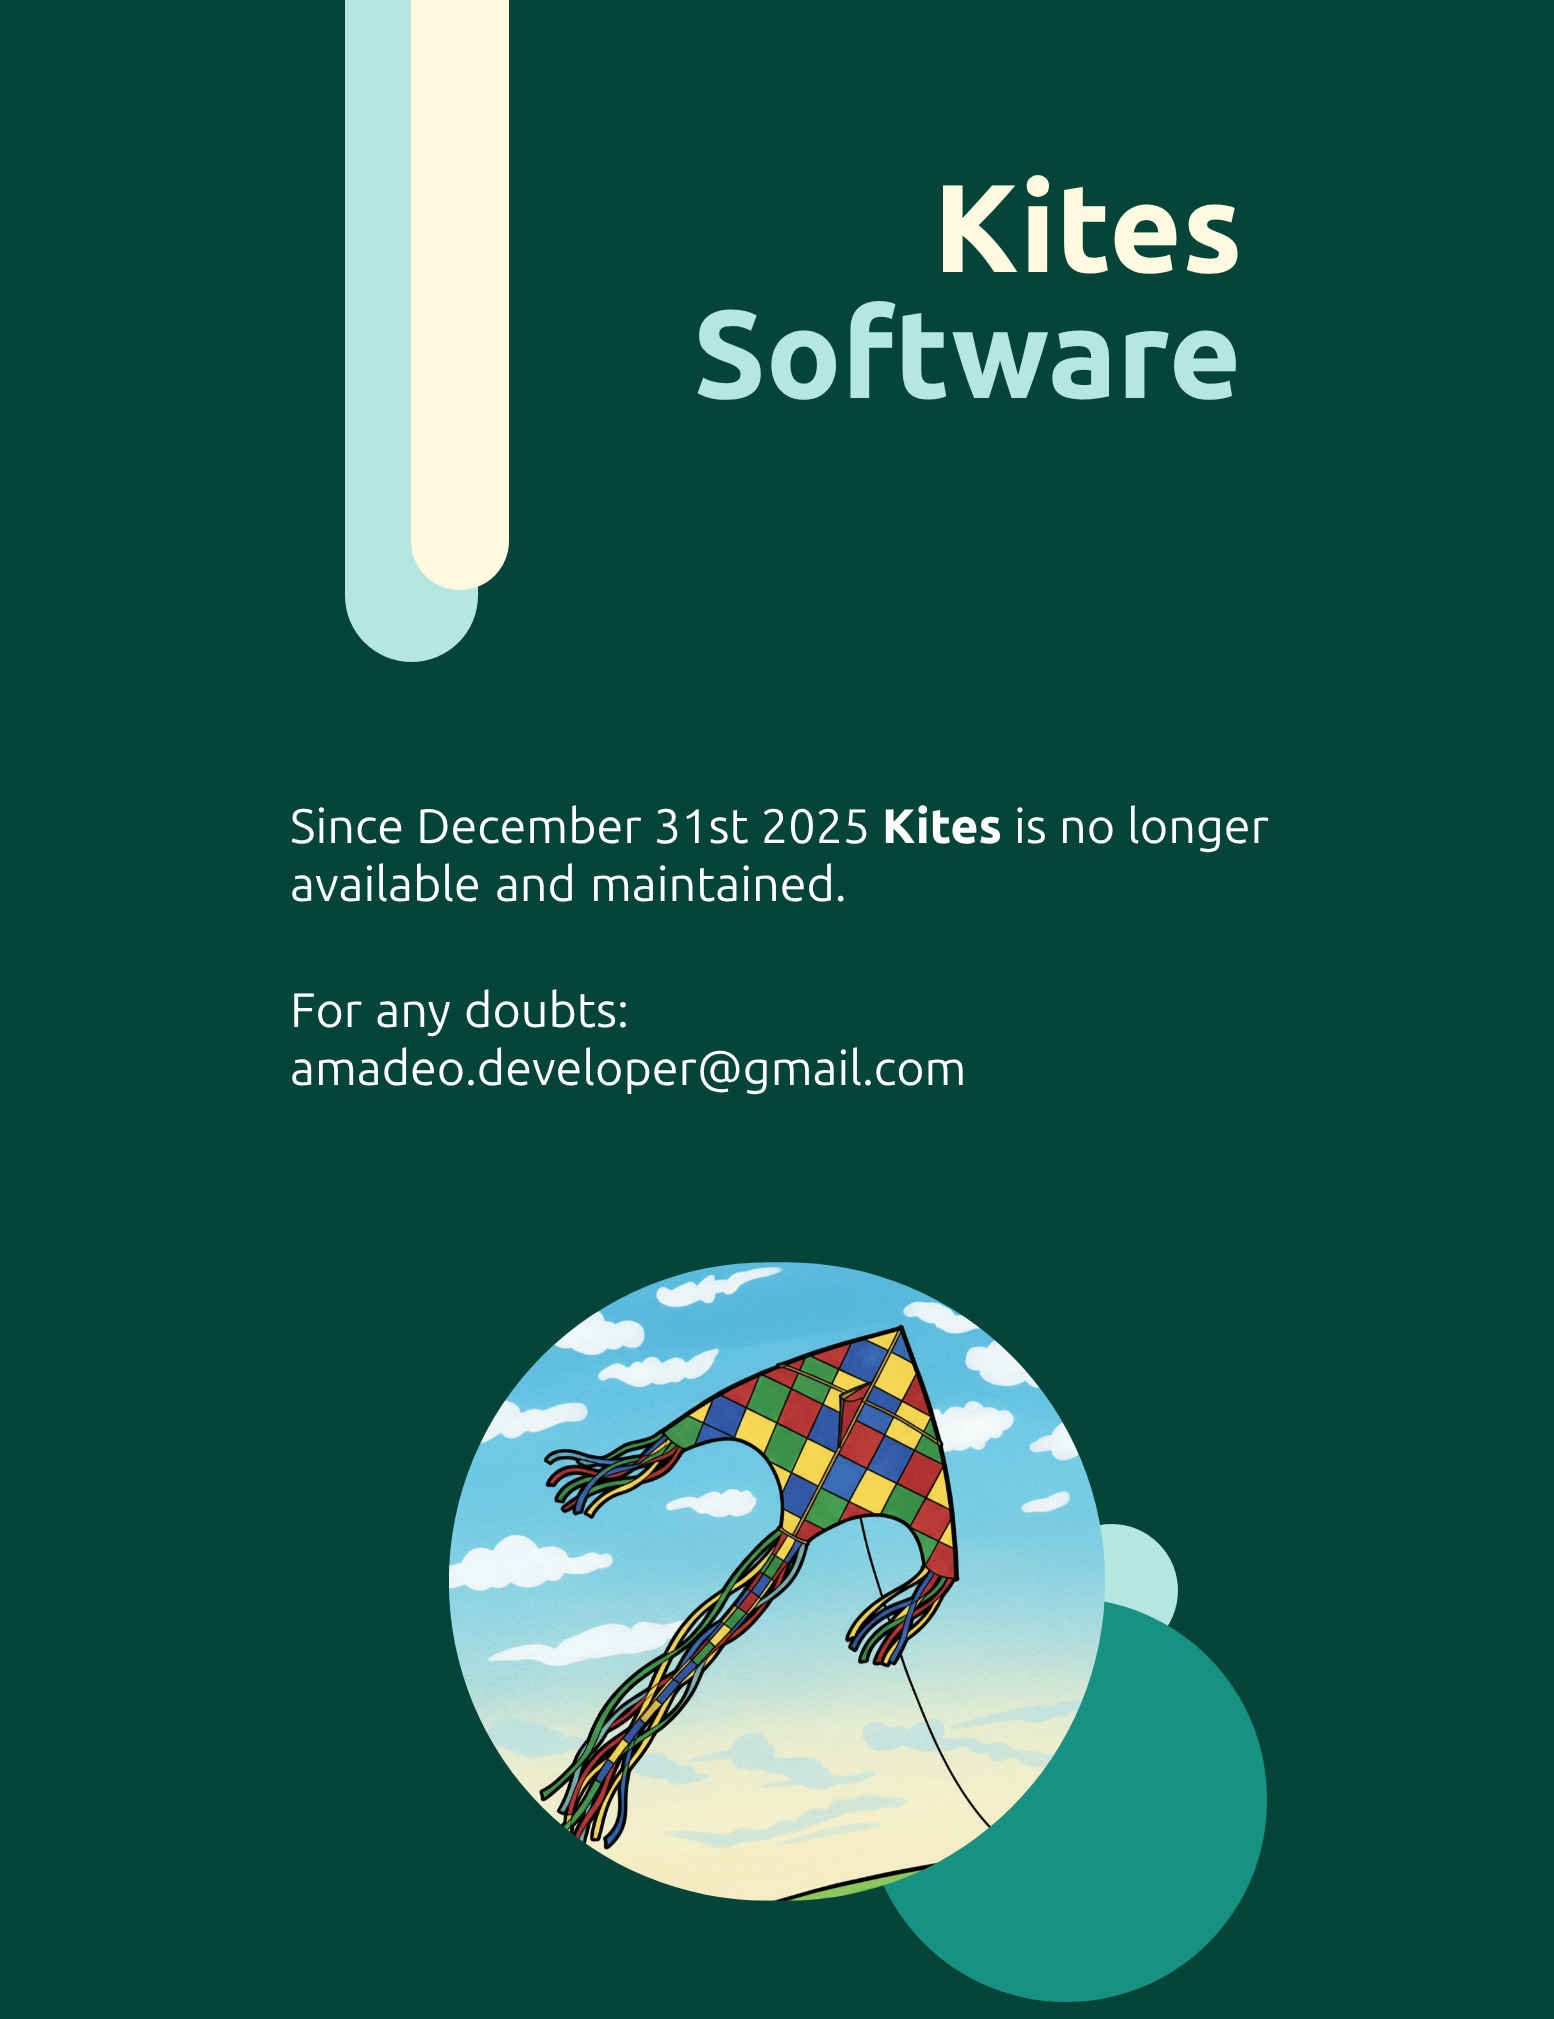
(async () => {
const canvas = document.querySelector("canvas")
canvas.width = 1554
canvas.height = 2019
const c = canvas.getContext("2d")
c.miterLimit = 4
c.fontKerning = "normal"
function T(s,x,y){c.fillText(s,x,y)}
function R(x,y,w,h){c.fillRect(x,y,w,h)}
function Q(x,y,w,h,r){c.beginPath();c.roundRect(x,y,w,h,r);c.fill()}
async function I(src,x,y,w,h){const img=new Image();img.src=src;await img.decode();c.drawImage(img,x,y,w,h)}
c.fillStyle="#054438"
R(0,0,1554,2019)
c.fillStyle="#b5e6df"
Q(345,-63,133,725,66.5)
c.fillStyle="#fff9df"
c.beginPath()
c.roundRect(411,0,98,590,[0,0,49,49])
c.fill()
c.font="800 125px Ubuntu"
T("Kites",933,272)
c.fillStyle="#b5e6df"
T("Software",693,398)
c.wordSpacing="1px"
c.font="48.5px Ubuntu"
c.fillStyle="#fff"
T("Since December 31st 2025",290,843)
c.wordSpacing="0px"
c.font="800 48.5px Ubuntu"
T("Kites",882,843)
c.wordSpacing="1px"
c.font="48.5px Ubuntu"
T("is no longer",1014,843)
c.wordSpacing="3px"
T("available and maintained.",290,901)
c.wordSpacing="2px"
T("For any doubts:",290,1027)
c.wordSpacing="0px"
T("amadeo.developer@gmail.com",290,1085)
c.fillStyle="#b5e6df"
c.beginPath()
c.arc(1111.5,1590.5,66.5,0,7)
c.fill()
c.fillStyle="#179181"
Q(865,1598,402,404,201)
await I("1.png",449,1262,656,639)
})()
